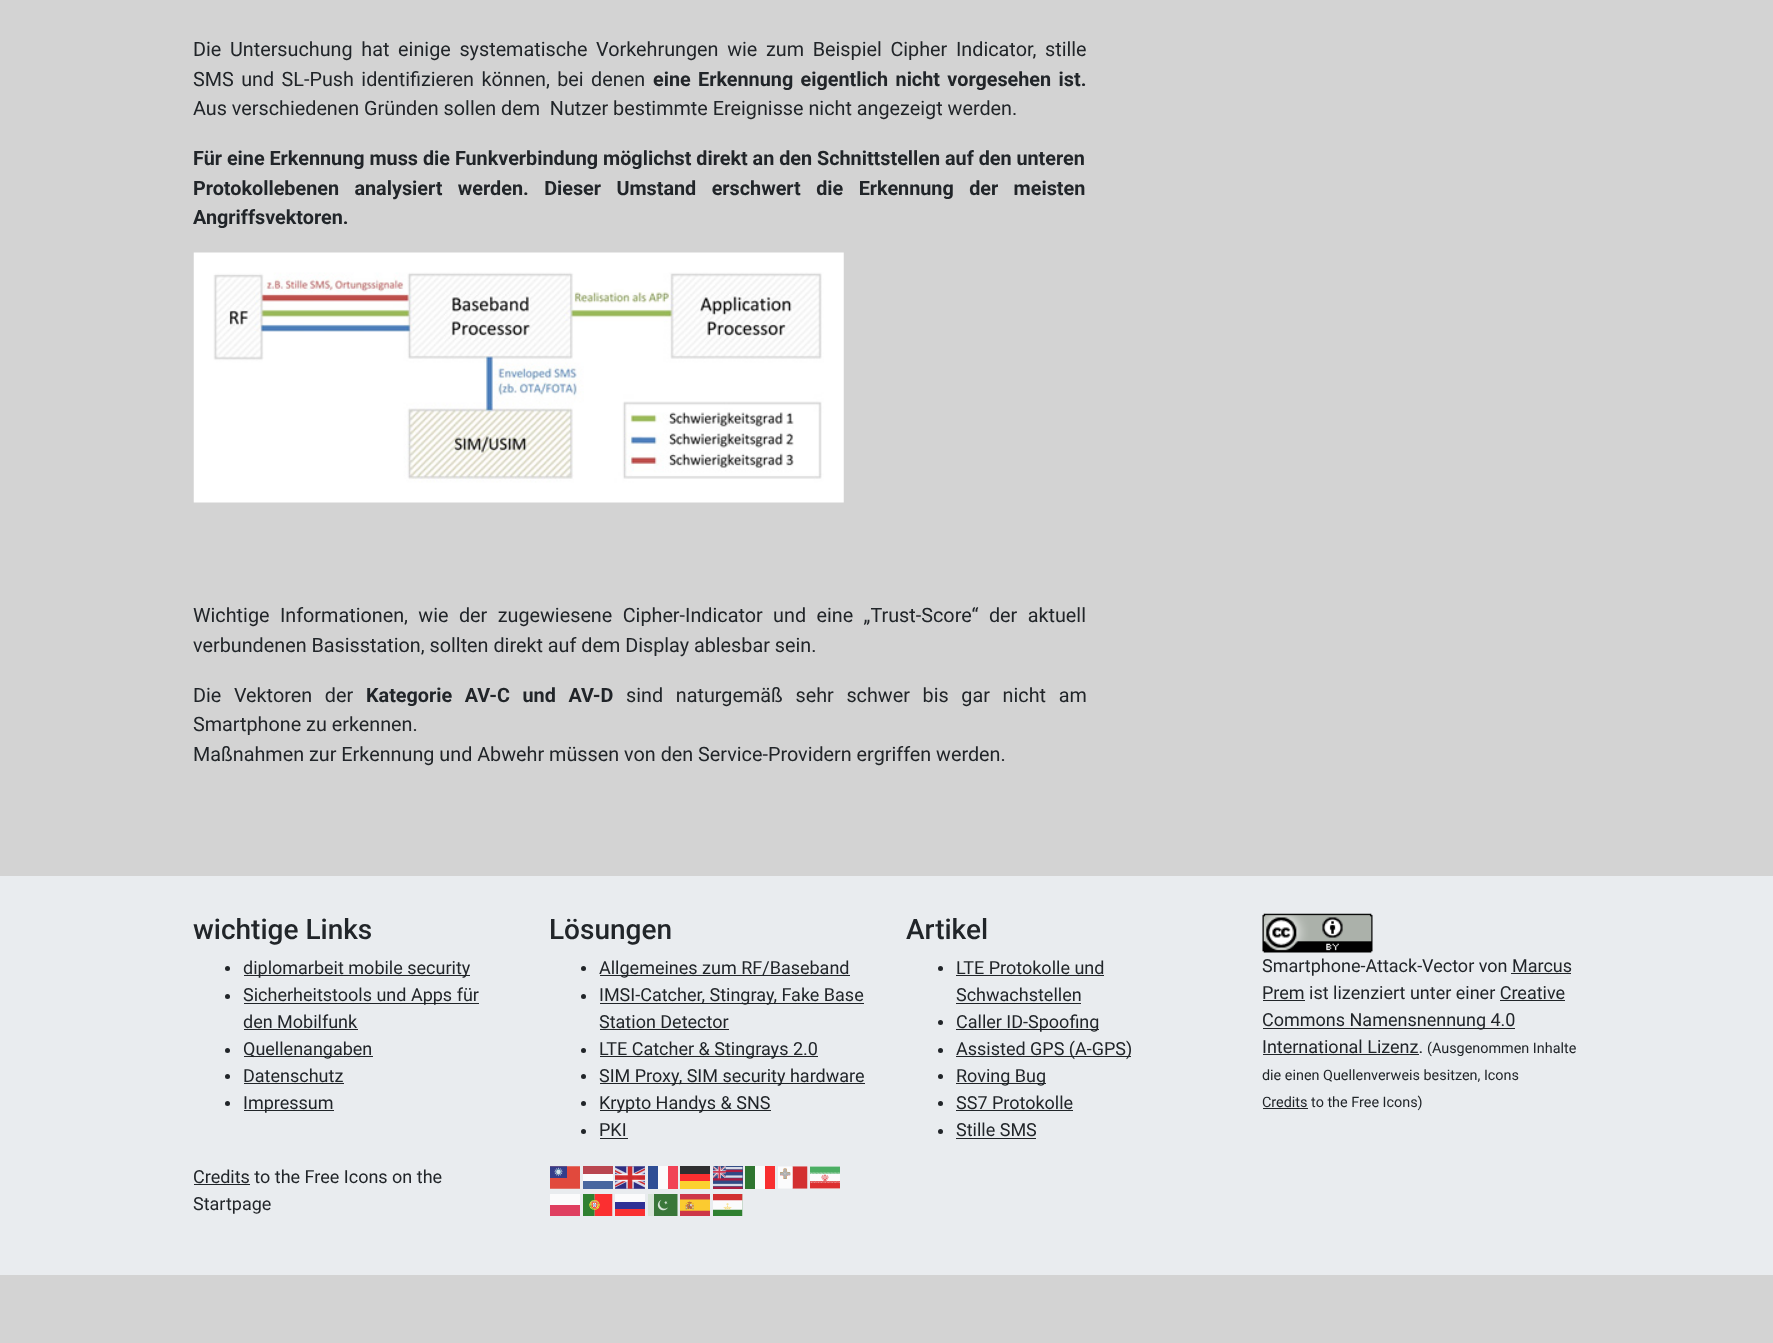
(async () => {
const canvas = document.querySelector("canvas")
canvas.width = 1773
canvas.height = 1343
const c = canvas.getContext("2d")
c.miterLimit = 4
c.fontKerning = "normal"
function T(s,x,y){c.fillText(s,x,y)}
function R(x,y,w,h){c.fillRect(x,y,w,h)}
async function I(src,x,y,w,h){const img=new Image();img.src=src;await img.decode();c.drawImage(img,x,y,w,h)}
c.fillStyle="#d3d3d3"
R(0,0,1773,1343)
c.wordSpacing="3.75px"
c.font="19.8px Roboto"
c.fillStyle="#212529"
T("Die Untersuchung hat einige systematische Vorkehrungen wie zum Beispiel Cipher Indicator, stille",193,56)
c.wordSpacing="2.5px"
T("SMS und SL-Push identifizieren können, bei denen",193,86)
c.font="bold 19.8px Roboto"
T("eine Erkennung eigentlich nicht vorgesehen ist.",653,86)
c.wordSpacing="0px"
c.font="19.8px Roboto"
T("Aus verschiedenen Gründen sollen dem  Nutzer bestimmte Ereignisse nicht angezeigt werden.",193,115)
c.font="bold 19.8px Roboto"
T("Für eine Erkennung muss die Funkverbindung möglichst direkt an den Schnittstellen auf den unteren",193,165)
c.wordSpacing="10.5px"
T("Protokollebenen analysiert werden. Dieser Umstand erschwert die Erkennung der meisten",193,195)
c.wordSpacing="0px"
T("Angriffsvektoren.",193,224)
await I("1.png",193,252,651,251)
c.wordSpacing="5.5px"
c.font="19.8px Roboto"
T("Wichtige Informationen, wie der zugewiesene Cipher-Indicator und eine „Trust-Score“ der aktuell",193,622)
c.wordSpacing="0px"
T("verbundenen Basisstation, sollten direkt auf dem Display ablesbar sein.",193,652)
c.wordSpacing="7.75px"
T("Die Vektoren der",193,702)
c.font="bold 19.8px Roboto"
T("Kategorie AV-C und AV-D",366,702)
c.font="19.8px Roboto"
T("sind naturgemäß sehr schwer bis gar nicht am",626,702)
c.wordSpacing="0px"
T("Smartphone zu erkennen.",193,731)
T("Maßnahmen zur Erkennung und Abwehr müssen von den Service-Providern ergriffen werden.",193,761)
c.fillStyle="#e9ecef"
R(0,876,1773,399)
c.font="500 28px Roboto"
c.fillStyle="#212529"
T("wichtige Links",193,939)
c.beginPath()
c.arc(227.5,968.5,2.5,0,7)
c.fill()
R(244,975,226,1)
c.font="18px Roboto"
T("diplomarbeit mobile security",243,974)
c.beginPath()
c.arc(227.5,996.5,2.5,0,7)
c.fill()
R(244,1003,235,1)
T("Sicherheitstools und Apps für",243,1001)
T("den Mobilfunk",243,1028)
R(244,1029,114,1)
c.beginPath()
c.arc(227.5,1050.5,2.5,0,7)
c.fill()
R(244,1056,129,1)
T("Quellenangaben",243,1055)
c.beginPath()
c.arc(227.5,1076.5,2.5,0,7)
c.fill()
T("Datenschutz",243,1082)
R(244,1083,100,1)
c.beginPath()
c.arc(227.5,1103.5,2.5,0,7)
c.fill()
R(244,1110,90,1)
T("Impressum",243,1109)
c.font="500 28px Roboto"
T("Lösungen",549,939)
c.beginPath()
c.arc(583.5,968.5,2.5,0,7)
c.fill()
R(600,975,250,1)
c.font="18px Roboto"
T("Allgemeines zum RF/Baseband",599,974)
c.beginPath()
c.arc(583.5,996.5,2.5,0,7)
c.fill()
R(600,1003,264,1)
T("IMSI-Catcher, Stingray, Fake Base",599,1001)
T("Station Detector",599,1028)
R(600,1029,129,1)
c.beginPath()
c.arc(583.5,1050.5,2.5,0,7)
c.fill()
R(600,1056,218,1)
T("LTE Catcher & Stingrays 2.0",599,1055)
c.beginPath()
c.arc(583.5,1076.5,2.5,0,7)
c.fill()
R(600,1083,265,1)
T("SIM Proxy, SIM security hardware",599,1082)
c.beginPath()
c.arc(583.5,1103.5,2.5,0,7)
c.fill()
R(600,1110,171,1)
T("Krypto Handys & SNS",599,1109)
c.beginPath()
c.arc(583.5,1131.5,2.5,0,7)
c.fill()
T("PKI",599,1136)
R(600,1138,28,1)
c.font="500 28px Roboto"
T("Artikel",906,939)
c.beginPath()
c.arc(940.5,968.5,2.5,0,7)
c.fill()
c.font="18px Roboto"
T("LTE Protokolle und",956,974)
R(956,975,148,1)
T("Schwachstellen",956,1001)
R(956,1003,125,1)
c.beginPath()
c.arc(940.5,1022.5,2.5,0,7)
c.fill()
R(956,1029,143,1)
T("Caller ID-Spoofing",956,1028)
c.beginPath()
c.arc(940.5,1050.5,2.5,0,7)
c.fill()
R(956,1056,175,1)
T("Assisted GPS (A-GPS)",956,1055)
c.beginPath()
c.arc(940.5,1076.5,2.5,0,7)
c.fill()
R(956,1083,90,1)
T("Roving Bug",956,1082)
c.beginPath()
c.arc(940.5,1103.5,2.5,0,7)
c.fill()
T("SS7 Protokolle",956,1109)
R(956,1110,117,1)
c.beginPath()
c.arc(940.5,1131.5,2.5,0,7)
c.fill()
T("Stille SMS",956,1136)
R(956,1138,80,1)
await I("2.png",1262,913,111,40)
T("Smartphone-Attack-Vector von Marcus",1262,972)
T("Prem ist lizenziert unter einer Creative",1262,999)
R(1511,973,60,1)
R(1263,1000,42,1)
R(1263,1028,252,1)
T("Commons Namensnennung 4.0",1262,1026)
R(1500,1000,65,1)
T("International Lizenz.",1262,1053)
R(1263,1054,156,1)
c.font="14.4px Roboto"
T("(Ausgenommen Inhalte",1427,1053)
T("die einen Quellenverweis besitzen, Icons",1262,1080)
R(1263,1108,45,1)
T("Credits to the Free Icons)",1262,1107)
c.font="18px Roboto"
T("Credits to the Free Icons on the",193,1183)
R(194,1184,56,1)
T("Startpage",193,1210)
await I("3.png",550,1166,30,23)
c.fillStyle="#ba4650"
R(583,1166,30,8)
await I("4.png",615,1166,30,23)
c.fillStyle="#2f4e95"
R(648,1166,10,23)
c.fillStyle="#fbfbfc"
R(658,1166,10,23)
c.fillStyle="#f14256"
R(668,1166,10,23)
c.fillStyle="#2f2f30"
R(680,1166,30,8)
await I("5.png",713,1166,30,23)
c.fillStyle="#2f7530"
R(745,1166,10,23)
c.fillStyle="#fbfbfc"
R(755,1166,10,23)
c.fillStyle="#f82f30"
R(765,1166,10,23)
await I("6.png",778,1166,30,23)
await I("7.png",810,1166,30,23)
c.fillStyle="#fbfbfc"
R(583,1174,30,7)
c.fillStyle="#fb2f30"
R(680,1174,30,7)
c.fillStyle="#49679f"
R(583,1181,30,8)
c.fillStyle="#fbd230"
R(680,1181,30,8)
c.fillStyle="#fbfbfc"
R(550,1194,30,11)
await I("8.png",583,1194,30,22)
R(615,1194,30,8)
await I("9.png",648,1194,30,22)
await I("10.png",680,1194,30,22)
await I("11.png",713,1194,30,22)
c.fillStyle="#df3f60"
R(550,1205,30,11)
c.fillStyle="#2f3095"
R(615,1202,30,7)
c.fillStyle="#fa3031"
R(615,1209,30,7)
})()
